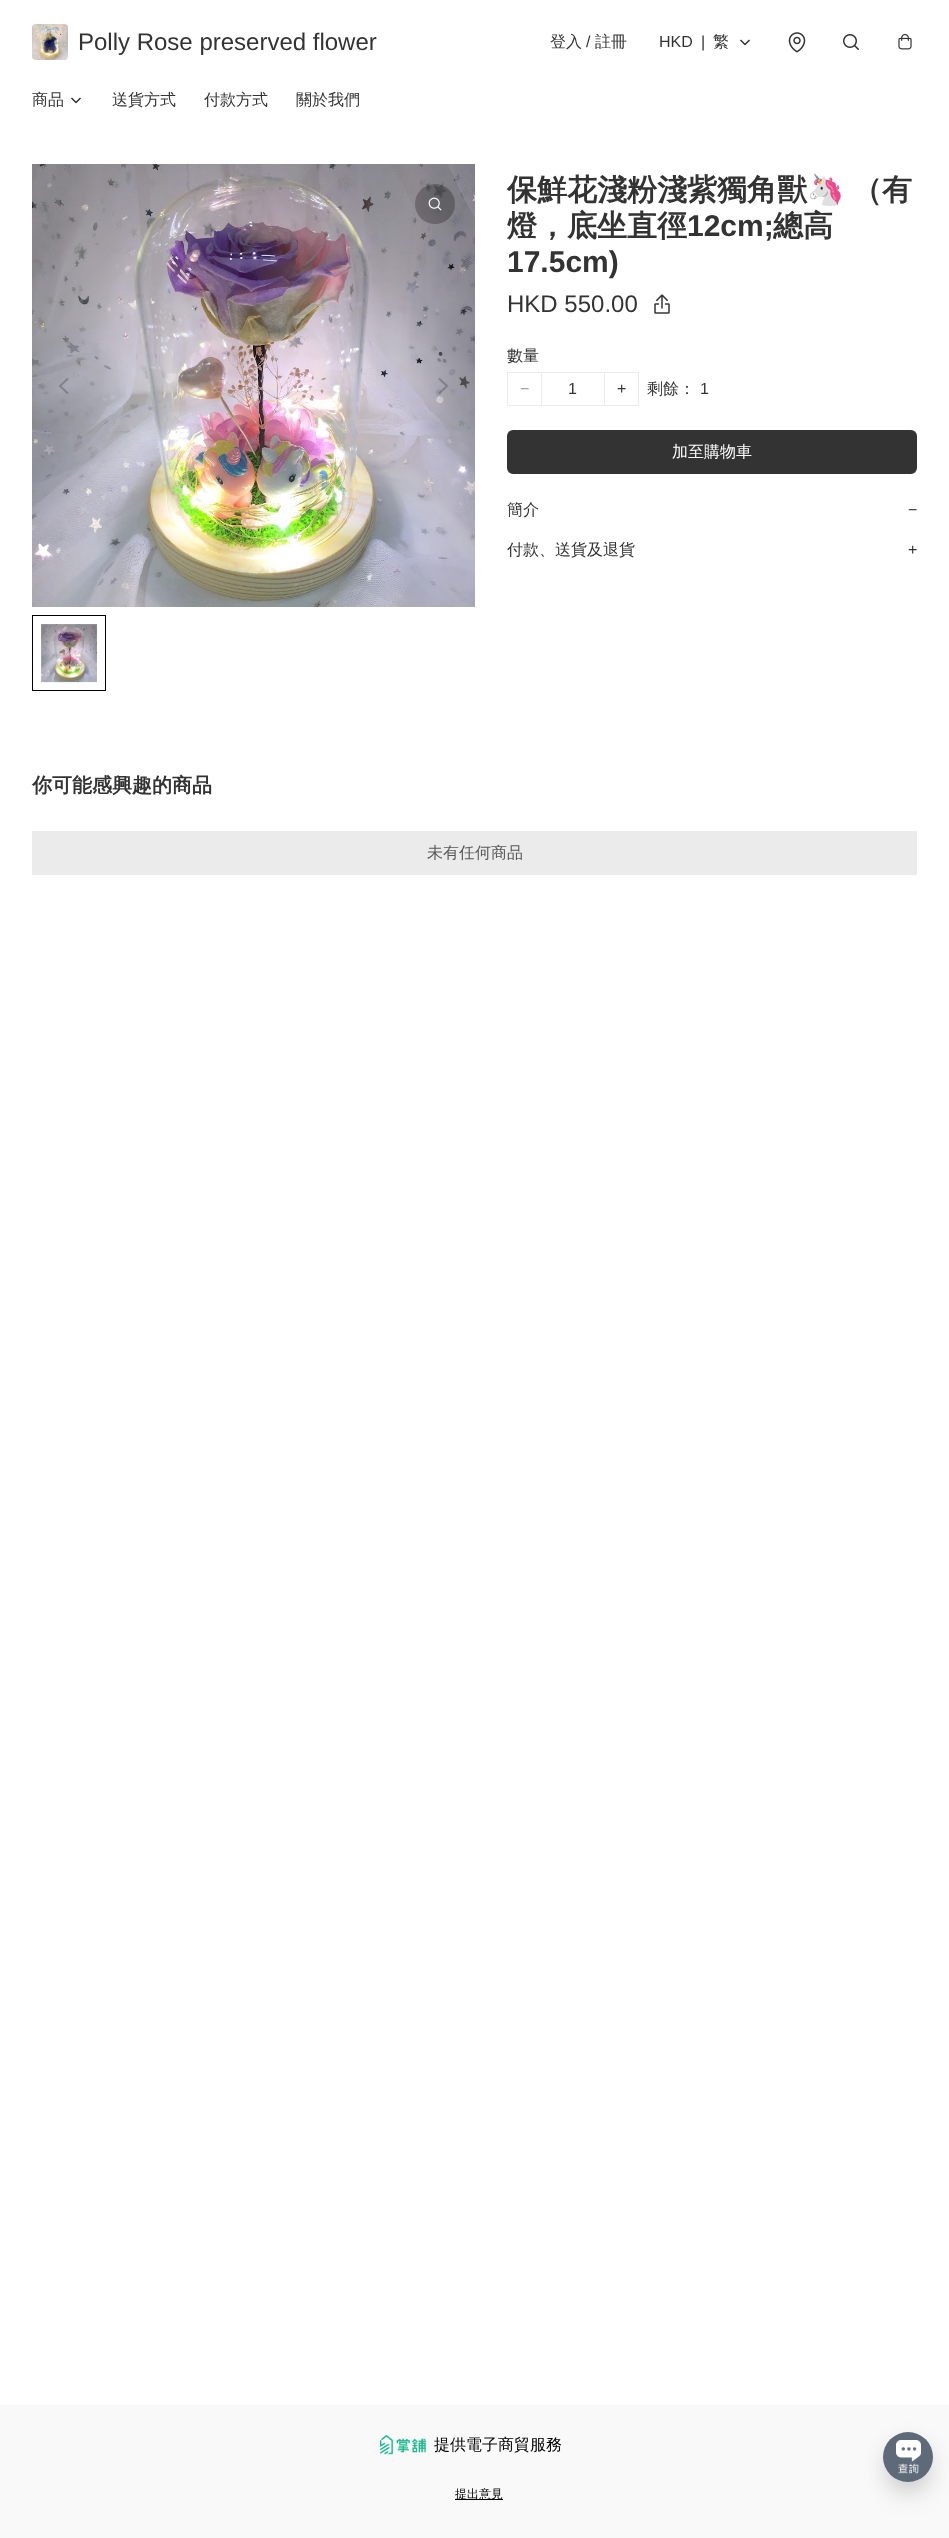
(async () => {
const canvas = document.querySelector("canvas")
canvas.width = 949
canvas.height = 2538
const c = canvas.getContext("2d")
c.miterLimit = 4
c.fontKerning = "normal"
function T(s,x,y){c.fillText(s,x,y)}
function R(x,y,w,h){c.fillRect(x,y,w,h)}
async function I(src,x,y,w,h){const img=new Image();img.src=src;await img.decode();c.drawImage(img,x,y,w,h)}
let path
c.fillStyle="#fff"
R(0,0,949,2538)
await I("1.png",32,24,36,36)
c.font="24px Liberation Sans"
c.fillStyle="#333"
T("Polly Rose preserved flower",78,50)
c.font="500 16px WenQuanYi Zen Hei"
T("登入",550,47)
c.font="16px Liberation Sans"
T("/",586,47)
c.font="500 16px WenQuanYi Zen Hei"
T("註冊",595,47)
c.font="16px Liberation Sans"
T("HKD",659,47)
T("|",701,47)
c.font="500 16px WenQuanYi Zen Hei"
T("繁",713,47)
path = new Path2D("M741 40.5l4 4l4-4")
c.strokeStyle="#333"
c.lineWidth=1.5
c.lineCap="square"
c.lineJoin="round"
c.stroke(path)
await I("2.png",788,32,18,21)
await I("3.png",843,34,16,16)
await I("4.png",898,33,14,17)
T("商品",32,105)
path = new Path2D("M72 98.5l4 4l4-4")
c.stroke(path)
T("送貨方式",112,105)
T("付款方式",204,105)
T("關於我們",296,105)
await I("5.png",32,164,443,443)
c.fillStyle="#00000040"
c.beginPath()
c.arc(435,204,20,0,7)
c.fill()
await I("6.png",428,197,14,14)
path = new Path2D("M68 378.5l-8 7.5l8 7.5")
c.strokeStyle="#3333334d"
c.lineWidth=2
c.lineCap="butt"
c.lineJoin="miter"
c.stroke(path)
path = new Path2D("M439 378.5l8 7.5l-8 7.5")
c.stroke(path)
c.strokeStyle="#000"
c.lineWidth=1
c.strokeRect(32.5,615.5,73,75)
await I("7.png",41,624,56,59)
c.font="bold 30px WenQuanYi Zen Hei"
c.fillStyle="#333"
T("保鮮花淺粉淺紫獨角獸",507,200)
c.font="bold 30px Noto Color Emoji"
T("🦄️",807,200)
c.font="bold 30px WenQuanYi Zen Hei"
T("（有",852,200)
T("燈，底坐直徑",507,236)
c.font="bold 30px Liberation Sans"
T("12cm;",687,236)
c.font="bold 30px WenQuanYi Zen Hei"
T("總高",773,236)
c.font="bold 30px Liberation Sans"
T("17.5cm)",507,272)
c.font="24px Liberation Sans"
T("HKD 550.00",507,312)
await I("8.png",654,294,16,20)
c.font="500 16px WenQuanYi Zen Hei"
T("數量",507,361)
c.strokeStyle="#ebebeb"
c.strokeRect(507.5,372.5,131,33)
c.font="16px Liberation Sans"
c.fillStyle="#999"
T("−",520,394)
c.fillStyle="#ebebeb"
R(604,373,1,32)
R(541,373,1,32)
c.fillStyle="#333"
T("1",568,394)
T("+",617,394)
c.font="500 16px WenQuanYi Zen Hei"
T("剩餘：",647,394)
c.font="16px Liberation Sans"
T("1",700,394)
c.beginPath()
c.roundRect(508,431,408,42,5)
c.fill()
c.strokeStyle="#333"
c.lineWidth=2
c.stroke()
c.font="500 16px WenQuanYi Zen Hei"
c.fillStyle="#fff"
T("加至購物車",672,457)
c.fillStyle="#333"
T("簡介",507,515)
c.font="16px Liberation Sans"
T("−",908,515)
c.font="500 16px WenQuanYi Zen Hei"
T("付款、送貨及退貨",507,555)
c.font="16px Liberation Sans"
T("+",908,555)
c.font="bold 20px WenQuanYi Zen Hei"
T("你可能感興趣的商品",32,792)
c.fillStyle="#ebebeb"
R(32,831,885,44)
c.font="500 16px WenQuanYi Zen Hei"
c.fillStyle="#585858"
T("未有任何商品",427,858)
c.fillStyle="#f9f9f9"
R(0,2405,949,133)
await I("9.png",380,2435,46,20)
c.fillStyle="#000"
T("提供電子商貿服務",434,2450)
R(455,2499,48,1)
c.font="500 12px WenQuanYi Zen Hei"
T("提出意見",455,2498)
c.fillStyle="#0000004d"
c.filter="blur(15px)"
c.beginPath()
c.roundRect(893,2457,30,30,15)
c.fill()
c.filter="none"
c.fillStyle="#0000000d"
c.filter="blur(10px)"
c.beginPath()
c.roundRect(883,2437,50,50,25)
c.fill()
c.filter="none"
c.fillStyle="#5f6a78"
c.beginPath()
c.arc(908,2457,25,0,7)
c.fill()
await I("10.png",896,2440,25,34)
})()
